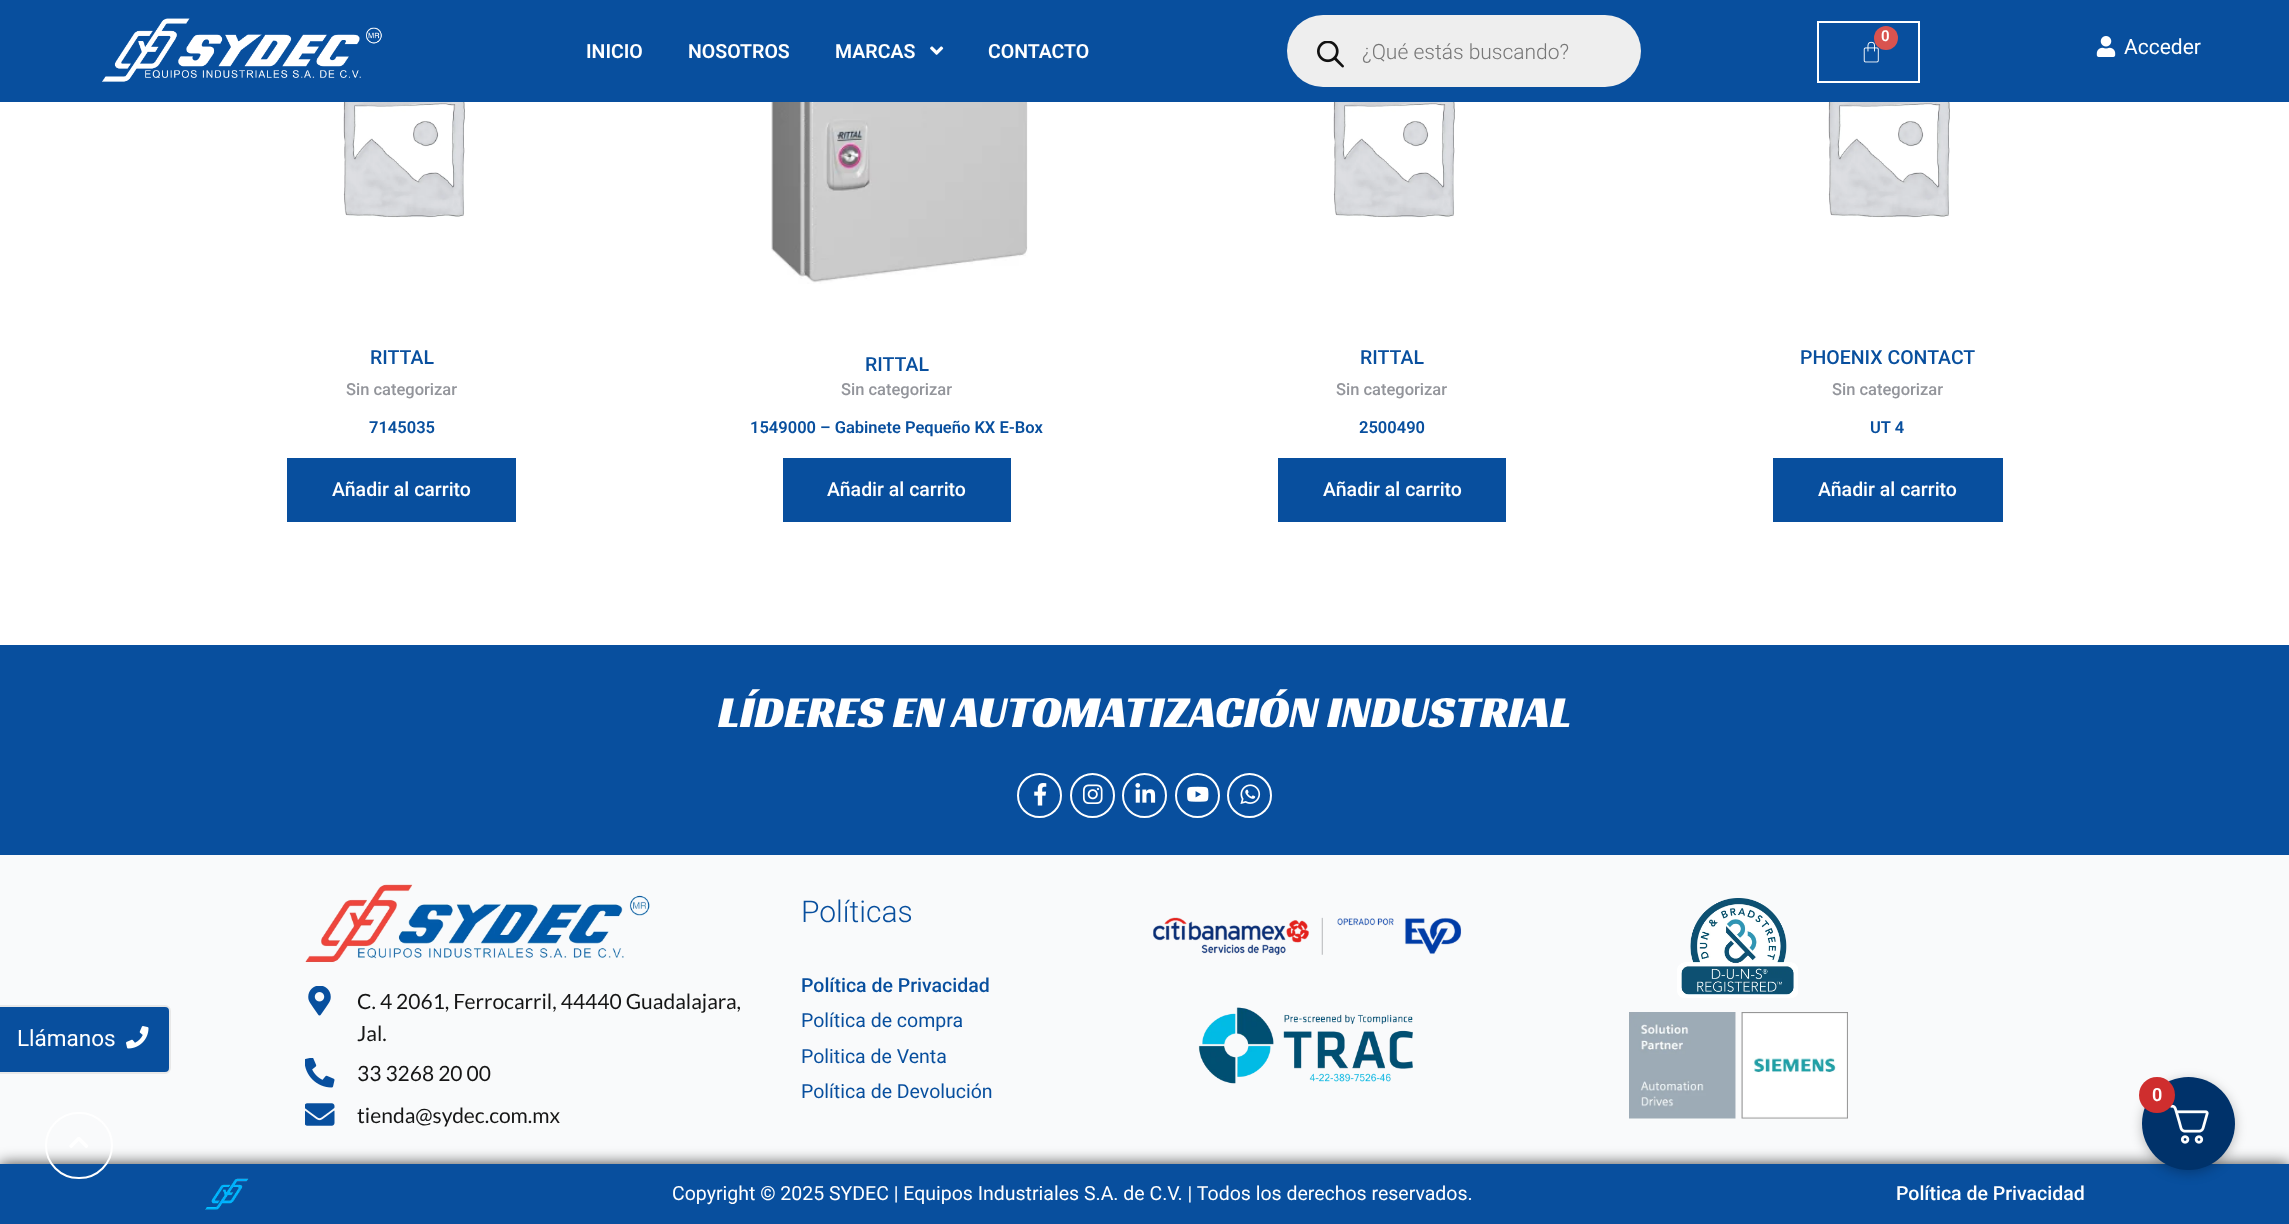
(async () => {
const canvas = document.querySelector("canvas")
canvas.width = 2289
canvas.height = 1224
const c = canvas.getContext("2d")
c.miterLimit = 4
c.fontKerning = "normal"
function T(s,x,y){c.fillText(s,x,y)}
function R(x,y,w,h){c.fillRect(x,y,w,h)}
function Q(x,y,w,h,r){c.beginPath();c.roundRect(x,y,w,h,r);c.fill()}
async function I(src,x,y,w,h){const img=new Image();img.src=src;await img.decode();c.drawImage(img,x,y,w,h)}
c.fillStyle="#fff"
R(0,0,2289,1224)
c.fillStyle="#084f9e"
R(0,0,2289,102)
await I("1.png",102,18,280,64)
c.strokeStyle="#fff"
c.lineWidth=2
c.strokeRect(1818,22,101,60)
await I("2.png",1863,41,16,22)
c.fillStyle="#d9534f"
c.beginPath()
c.arc(1886,38,12,0,7)
c.fill()
c.font="600 15px Roboto"
c.fillStyle="#fff"
T("0",1881,41)
c.font="600 19.5px Roboto"
T("INICIO",586,58)
T("NOSOTROS",688,58)
T("MARCAS",835,58)
await I("3.png",930,46,14,9)
T("CONTACTO",988,58)
c.fillStyle="#eee"
Q(1287,15,354,72,36)
await I("4.png",1317,41,27,27)
c.font="300 21px Roboto"
c.fillStyle="#777"
T("¿Qué estás buscando?",1362,59)
await I("5.png",2096,36,20,21)
c.font="21px Roboto"
c.fillStyle="#fff"
T("Acceder",2124,54)
await I("6.png",343,102,122,116)
c.font="500 19.5px Roboto"
c.fillStyle="#084f9e"
T("RITTAL",370,364)
c.font="500 16.5px Roboto"
c.fillStyle="#93959b"
T("Sin categorizar",346,395)
c.font="600 16.5px Roboto"
c.fillStyle="#084f9e"
T("7145035",369,433)
R(287,458,229,64)
c.font="500 19.5px Roboto"
c.fillStyle="#fff"
T("Añadir al carrito",332,496)
await I("7.png",771,102,257,182)
c.fillStyle="#084f9e"
T("RITTAL",865,371)
c.font="500 16.5px Roboto"
c.fillStyle="#93959b"
T("Sin categorizar",841,395)
c.font="600 16.5px Roboto"
c.fillStyle="#084f9e"
T("1549000 – Gabinete Pequeño KX E-Box",750,433)
R(783,458,228,64)
c.font="500 19.5px Roboto"
c.fillStyle="#fff"
T("Añadir al carrito",827,496)
await I("8.png",1333,102,122,116)
c.fillStyle="#084f9e"
T("RITTAL",1360,364)
c.font="500 16.5px Roboto"
c.fillStyle="#93959b"
T("Sin categorizar",1336,395)
c.font="600 16.5px Roboto"
c.fillStyle="#084f9e"
T("2500490",1359,433)
R(1278,458,228,64)
c.font="500 19.5px Roboto"
c.fillStyle="#fff"
T("Añadir al carrito",1323,496)
await I("8.png",1828,102,122,116)
c.fillStyle="#084f9e"
T("PHOENIX CONTACT",1800,364)
c.font="500 16.5px Roboto"
c.fillStyle="#93959b"
T("Sin categorizar",1832,395)
c.font="600 16.5px Roboto"
c.fillStyle="#084f9e"
T("UT 4",1870,433)
R(1773,458,230,64)
c.font="500 19.5px Roboto"
c.fillStyle="#fff"
T("Añadir al carrito",1818,496)
c.fillStyle="#084f9e"
R(0,645,2289,210)
c.font="45px Racing Sans One"
c.fillStyle="#fff"
T("LÍDERES EN AUTOMATIZACIÓN INDUSTRIAL",718,727)
c.beginPath()
c.arc(1039.5,795.5,21.5,0,7)
c.stroke()
await I("9.png",1034,783,13,23)
c.beginPath()
c.arc(1092.5,795.5,21.5,0,7)
c.stroke()
await I("10.png",1082,784,21,20)
c.beginPath()
c.arc(1144.5,795.5,21.5,0,7)
c.stroke()
await I("11.png",1135,783,21,20)
c.beginPath()
c.arc(1197.5,795.5,21.5,0,7)
c.stroke()
await I("12.png",1187,786,22,16)
c.beginPath()
c.arc(1249.5,795.5,21.5,0,7)
c.stroke()
await I("13.png",1240,784,21,20)
c.fillStyle="#f9fafb"
R(0,855,2289,309)
c.fillStyle="#084f9e"
c.beginPath()
c.roundRect(-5,1006,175,67,5)
c.fill()
c.strokeStyle="#e8e8e8"
c.stroke()
c.font="22.5px Roboto"
c.fillStyle="#fff"
T("Llámanos",17,1046)
await I("14.png",126,1026,23,23)
await I("15.png",305,884,345,79)
await I("16.png",308,986,23,30)
c.font="21px Lato"
c.fillStyle="#161616"
T("C. 4 2061, Ferrocarril, 44440 Guadalajara,",357,1009)
T("Jal.",357,1041)
await I("17.png",305,1058,30,30)
T("33 3268 20 00",357,1081)
await I("18.png",305,1103,30,23)
T("tienda@sydec.com.mx",357,1123)
c.font="300 30px Roboto"
c.fillStyle="#084f9e"
T("Políticas",801,922)
c.font="500 19.5px Roboto"
T("Política de Privacidad",801,992)
c.font="19.5px Roboto"
T("Política de compra",801,1027)
T("Politica de Venta",801,1063)
T("Política de Devolución",801,1098)
await I("19.png",1153,917,309,38)
await I("20.png",1198,1007,215,77)
await I("21.png",1677,898,121,100)
await I("22.png",1629,1012,219,107)
c.fillStyle="#000000bf"
c.filter="blur(7.5px)"
c.beginPath()
c.rect(0,1164,2289,60)
c.fill()
c.filter="none"
c.fillStyle="#084f9e"
R(0,1164,2289,60)
c.beginPath()
c.roundRect(46,1113,66,65,32.5)
c.strokeStyle="#fff"
c.stroke()
await I("23.png",69,1137,19,11)
await I("24.png",205,1178,44,32)
c.fillStyle="#fff"
T("Copyright © 2025 SYDEC | Equipos Industriales S.A. de C.V. | Todos los derechos reservados.",672,1200)
c.font="500 19.5px Roboto"
T("Política de Privacidad",1896,1200)
c.fillStyle="#00000040"
c.filter="blur(6px)"
c.beginPath()
c.roundRect(2142,1080,93,93,46.5)
c.fill()
c.filter="none"
c.fillStyle="#00326a"
c.beginPath()
c.arc(2188.5,1123.5,46.5,0,7)
c.fill()
await I("25.png",2170,1104,39,40)
c.fillStyle="#cf2e2e"
c.beginPath()
c.arc(2157,1095,18,0,7)
c.fill()
c.font="600 18px Roboto"
c.fillStyle="#fff"
T("0",2152,1101)
})()
